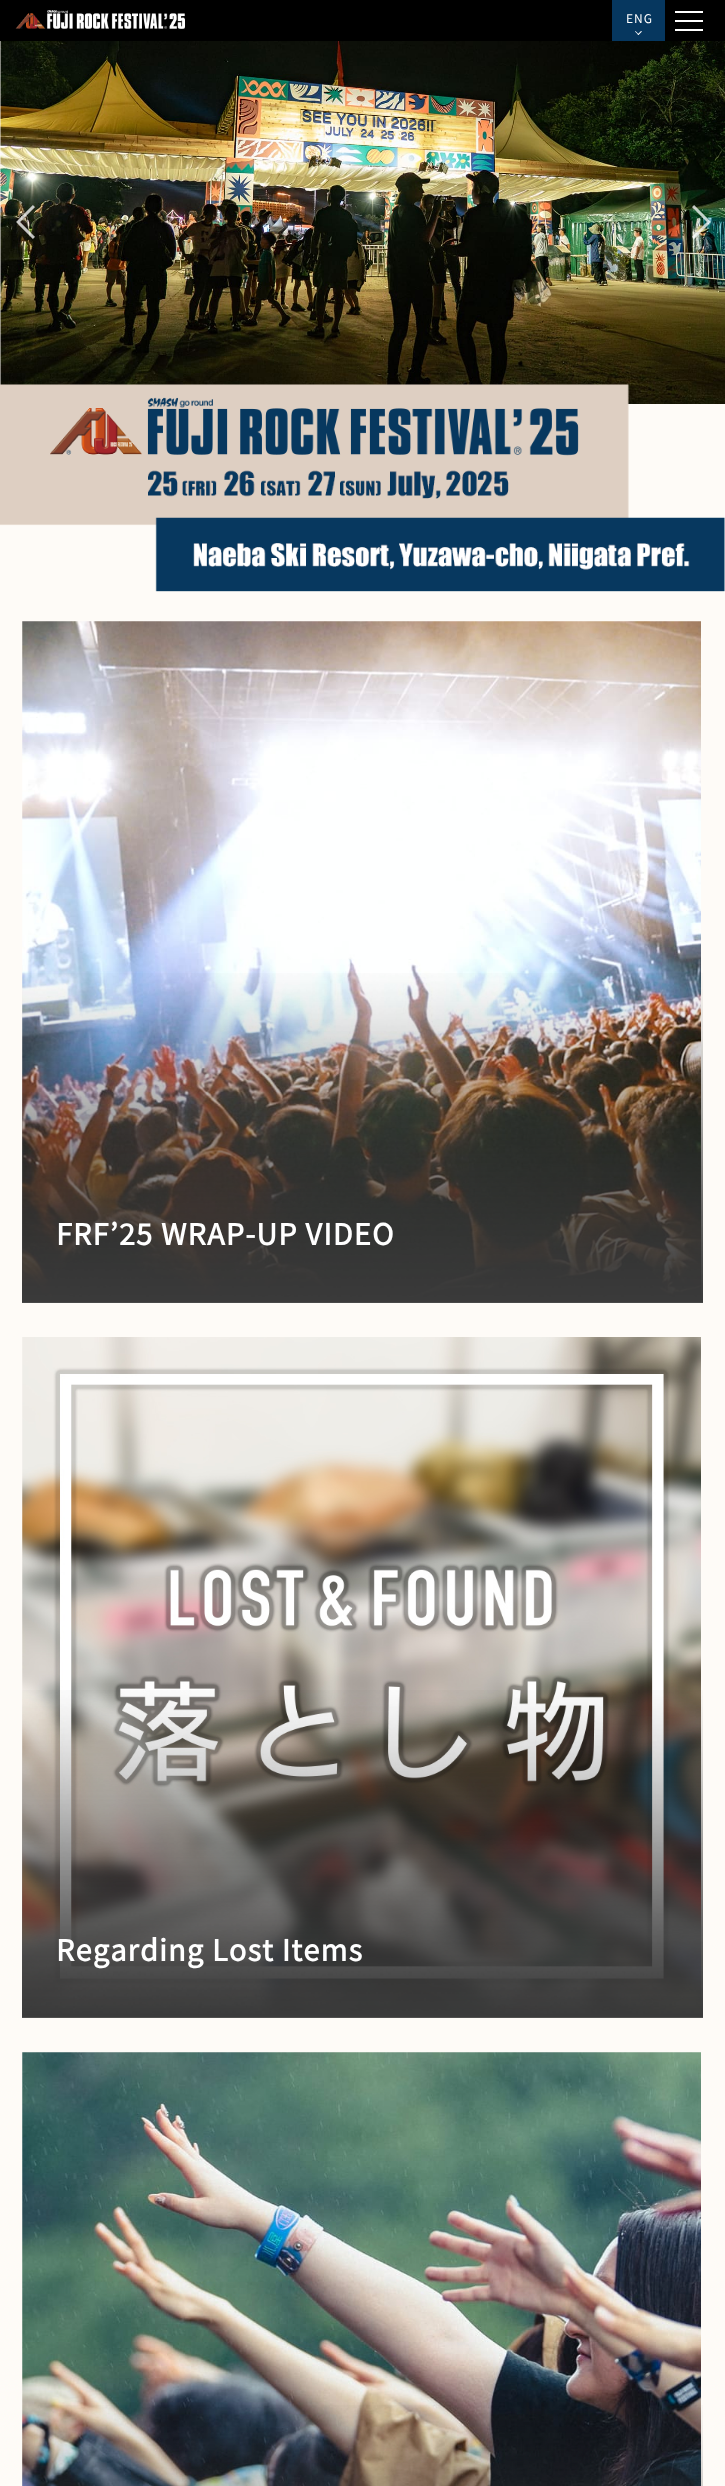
(async () => {
const canvas = document.querySelector("canvas")
canvas.width = 725
canvas.height = 2486
const c = canvas.getContext("2d")
c.miterLimit = 4
c.fontKerning = "none"
function T(s,x,y){c.fillText(s,x,y)}
function R(x,y,w,h){c.fillRect(x,y,w,h)}
async function I(src,x,y,w,h){const img=new Image();img.src=src;await img.decode();c.drawImage(img,x,y,w,h)}
let path
c.fillStyle="#fefbf7"
R(0,0,725,2486)
c.fillStyle="#000"
R(0,0,725,41)
await I("1.png",15,10,170,19)
c.fillStyle="#06375f"
R(612,0,53,41)
c.letterSpacing="1px"
c.font="100 12px Noto Sans JP"
c.fillStyle="#fff"
T("ENG",626,23)
path = new Path2D("M642 31.5l-3.5 3.5l-1-.5l3.5-3.5z")
c.fill(path)
path = new Path2D("M639 34.5l-.5 .5l-3.5-3.5l.5-.5z")
c.fill(path)
R(675,20,28,2)
R(675,11,28,2)
R(675,29,28,2)
await I("2.png",0,41,725,363)
await I("3.png",16,205,19,34)
await I("4.png",692,205,19,34)
await I("5.png",0,384,725,208)
await I("6.png",22,621,679,679)
await I("7.png",22,973,681,330)
c.letterSpacing="1.1px"
c.font="bold 29px Noto Sans JP"
T("FRF’25 WRAP-UP VIDEO",56,1245)
await I("8.png",22,1337,679,677)
await I("9.png",22,1690,681,328)
T("Regarding Lost Items",56,1961)
await I("10.png",22,2052,679,434)
await I("11.png",22,2405,681,81)
})()
